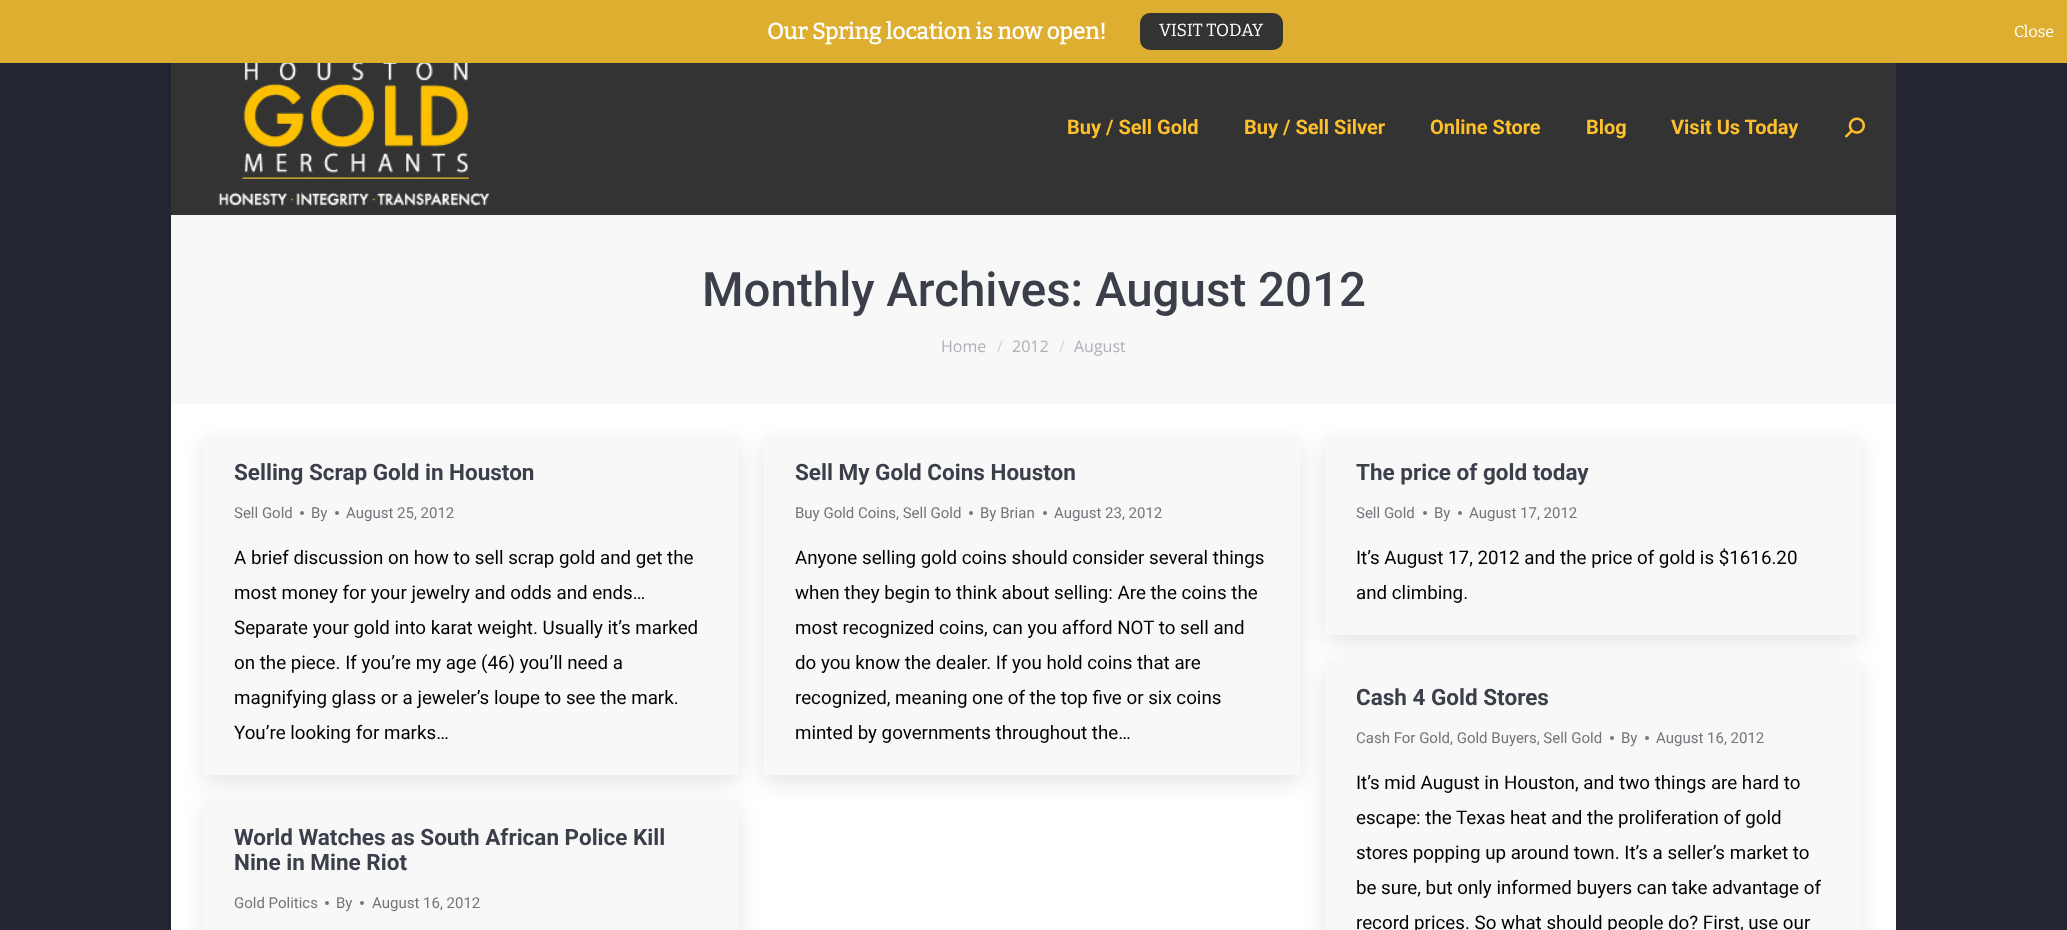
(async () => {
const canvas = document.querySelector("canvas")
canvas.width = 2067
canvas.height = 930
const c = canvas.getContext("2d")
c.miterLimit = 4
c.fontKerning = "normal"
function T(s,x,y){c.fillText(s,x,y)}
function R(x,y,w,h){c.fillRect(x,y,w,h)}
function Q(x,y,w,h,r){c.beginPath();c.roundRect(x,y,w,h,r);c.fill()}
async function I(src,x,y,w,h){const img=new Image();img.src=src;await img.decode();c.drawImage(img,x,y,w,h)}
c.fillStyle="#242533"
R(0,0,2067,930)
c.fillStyle="#deae30"
R(0,0,2067,63)
c.font="bold 22.5px Bitter"
c.fillStyle="#fff"
T("Our Spring location is now open!",767,39)
c.fillStyle="#333332"
Q(1140,13,143,37,10)
c.font="100 17.5px Bitter"
c.fillStyle="#fff"
T("VISIT TODAY",1159,36)
c.font="100 16px Bitter"
T("Close",2014,37)
R(171,404,1725,526)
c.fillStyle="#333"
R(171,63,1725,152)
await I("1.png",218,63,271,144)
c.font="bold 20px Roboto"
c.fillStyle="#febf2d"
T("Buy / Sell Gold",1067,134)
T("Buy / Sell Silver",1244,134)
T("Online Store",1430,134)
T("Blog",1586,134)
T("Visit Us Today",1671,134)
await I("2.png",1845,117,20,21)
c.fillStyle="#f8f8f9"
R(171,215,1725,189)
c.font="500 47.5px Roboto"
c.fillStyle="#3b3f4a"
T("Monthly Archives: August 2012",702,306)
c.font="16px Open Sans"
c.fillStyle="#adb0b6"
T("Home",941,352)
c.fillStyle="#d3d4d8"
T("/",997,352)
c.fillStyle="#adb0b6"
T("2012",1012,352)
c.fillStyle="#d3d4d8"
T("/",1059,352)
c.fillStyle="#adb0b6"
T("August",1074,352)
c.fillStyle="#0000001a"
c.filter="blur(11px)"
c.beginPath()
c.rect(203,443,536,340)
c.fill()
c.filter="none"
c.fillStyle="#f8f8f9"
R(203,435,536,340)
c.font="bold 22.5px Roboto"
c.fillStyle="#3b3f4a"
T("Selling Scrap Gold in Houston",234,480)
c.font="15px Roboto"
c.fillStyle="#73757a"
T("Sell Gold",234,518)
c.beginPath()
c.arc(302,513,2,0,7)
c.fill()
T("By",311,518)
c.beginPath()
c.arc(337,513,2,0,7)
c.fill()
T("August 25, 2012",346,518)
c.font="18.75px Roboto"
c.fillStyle="#000"
T("A brief discussion on how to sell scrap gold and get the",234,564)
T("most money for your jewelry and odds and ends…",234,599)
T("Separate your gold into karat weight. Usually it’s marked",234,634)
T("on the piece. If you’re my age (46) you’ll need a",234,669)
T("magnifying glass or a jeweler’s loupe to see the mark.",234,704)
T("You’re looking for marks…",234,739)
c.fillStyle="#0000001a"
c.filter="blur(11px)"
c.beginPath()
c.rect(764,443,536,340)
c.fill()
c.filter="none"
c.fillStyle="#f8f8f9"
R(764,435,536,340)
c.font="bold 22.5px Roboto"
c.fillStyle="#3b3f4a"
T("Sell My Gold Coins Houston",795,480)
c.font="15px Roboto"
c.fillStyle="#73757a"
T("Buy Gold Coins, Sell Gold",795,518)
c.beginPath()
c.arc(971,513,2,0,7)
c.fill()
T("By Brian",980,518)
c.beginPath()
c.arc(1045,513,2,0,7)
c.fill()
T("August 23, 2012",1054,518)
c.font="18.75px Roboto"
c.fillStyle="#000"
T("Anyone selling gold coins should consider several things",795,564)
T("when they begin to think about selling: Are the coins the",795,599)
T("most recognized coins, can you afford NOT to sell and",795,634)
T("do you know the dealer. If you hold coins that are",795,669)
T("recognized, meaning one of the top five or six coins",795,704)
T("minted by governments throughout the…",795,739)
c.fillStyle="#0000001a"
c.filter="blur(11px)"
c.beginPath()
c.rect(1325,443,536,200)
c.fill()
c.filter="none"
c.fillStyle="#f8f8f9"
R(1325,435,536,200)
c.font="bold 22.5px Roboto"
c.fillStyle="#3b3f4a"
T("The price of gold today",1356,480)
c.font="15px Roboto"
c.fillStyle="#73757a"
T("Sell Gold",1356,518)
c.beginPath()
c.arc(1425,513,2,0,7)
c.fill()
T("By",1434,518)
c.beginPath()
c.arc(1460,513,2,0,7)
c.fill()
T("August 17, 2012",1469,518)
c.font="18.75px Roboto"
c.fillStyle="#000"
T("It’s August 17, 2012 and the price of gold is $1616.20",1356,564)
T("and climbing.",1356,599)
c.fillStyle="#0000001a"
c.filter="blur(11px)"
c.beginPath()
c.rect(203,808,536,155)
c.fill()
c.filter="none"
c.fillStyle="#f8f8f9"
R(203,800,536,130)
c.font="bold 22.5px Roboto"
c.fillStyle="#3b3f4a"
T("World Watches as South African Police Kill",234,845)
T("Nine in Mine Riot",234,870)
c.font="15px Roboto"
c.fillStyle="#73757a"
T("Gold Politics",234,908)
c.beginPath()
c.arc(327,903,2,0,7)
c.fill()
T("By",336,908)
c.beginPath()
c.arc(362,903,2,0,7)
c.fill()
T("August 16, 2012",372,908)
c.fillStyle="#0000001a"
c.filter="blur(11px)"
c.beginPath()
c.rect(1325,668,536,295)
c.fill()
c.filter="none"
c.fillStyle="#f8f8f9"
R(1325,660,536,270)
c.font="bold 22.5px Roboto"
c.fillStyle="#3b3f4a"
T("Cash 4 Gold Stores",1356,705)
c.font="15px Roboto"
c.fillStyle="#73757a"
T("Cash For Gold, Gold Buyers, Sell Gold",1356,743)
c.beginPath()
c.arc(1612,738,2,0,7)
c.fill()
T("By",1621,743)
c.beginPath()
c.arc(1647,738,2,0,7)
c.fill()
T("August 16, 2012",1656,743)
c.font="18.75px Roboto"
c.fillStyle="#000"
T("It’s mid August in Houston, and two things are hard to",1356,789)
T("escape: the Texas heat and the proliferation of gold",1356,824)
T("stores popping up around town. It’s a seller’s market to",1356,859)
T("be sure, but only informed buyers can take advantage of",1356,894)
T("record prices. So what should people do? First, use our",1356,929)
})()
